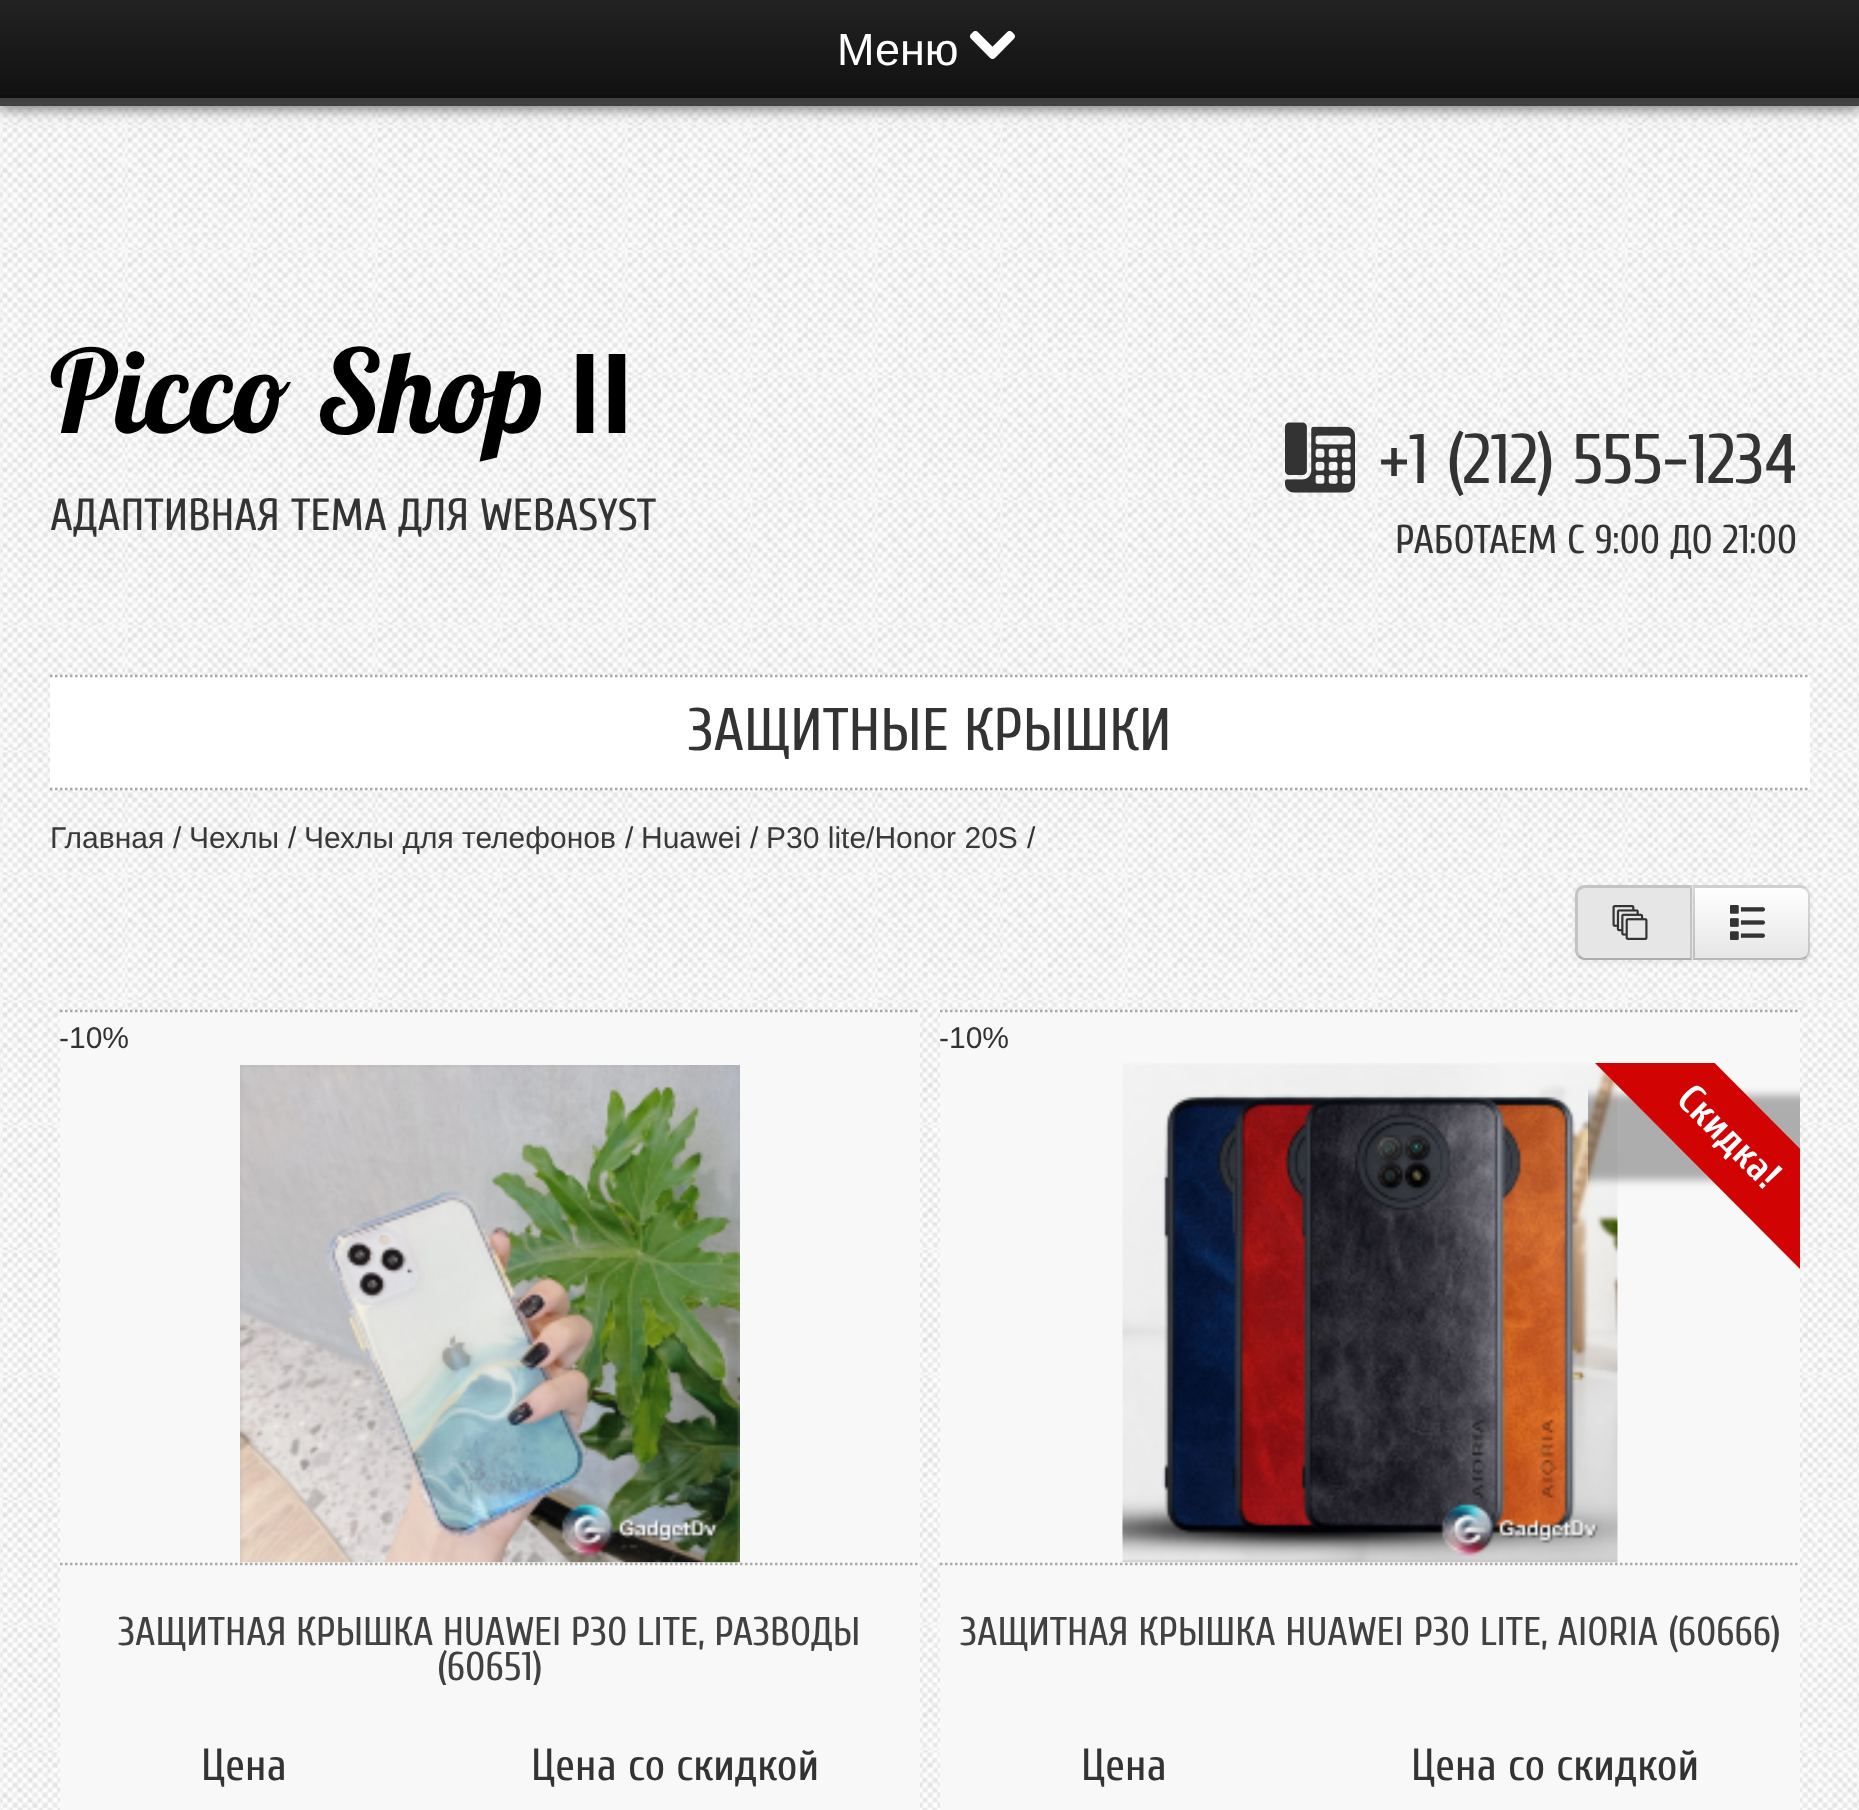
(async () => {
const canvas = document.querySelector("canvas")
canvas.width = 1859
canvas.height = 1810
const c = canvas.getContext("2d")
c.miterLimit = 4
c.fontKerning = "normal"
function T(s,x,y){c.fillText(s,x,y)}
function R(x,y,w,h){c.fillRect(x,y,w,h)}
async function I(src,x,y,w,h){const img=new Image();img.src=src;await img.decode();c.drawImage(img,x,y,w,h)}
let gradient, path
c.fillStyle="#fff"
R(0,0,1859,1810)
await I("1.png",0,106,1859,1704)
c.fillStyle="#969696"
c.filter="blur(6px)"
c.beginPath()
c.rect(0,5,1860,105)
c.fill()
c.filter="none"
c.fillStyle="#0000001a"
c.filter="blur(12.5px)"
c.beginPath()
c.rect(0,3,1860,105)
c.fill()
c.filter="none"
gradient = c.createLinearGradient(930,0,930,98)
gradient.addColorStop(0,"#222")
gradient.addColorStop(1,"#111")
c.fillStyle = gradient
R(0,0,1859,95)
c.fillStyle="#0f0f0f"
R(0,95,1859,3)
c.fillStyle="#414141"
R(0,98,1859,8)
c.font="45px Liberation Sans"
c.fillStyle="#fff"
T("Меню",837,65)
await I("2.png",970,31,45,29)
c.font="115px Lobster"
c.fillStyle="#000"
T("Picco Shop",50,433)
c.font="bold 115px Liberation Sans"
T("II",569,433)
c.font="45px Cuprum"
c.fillStyle="#333"
T("АДАПТИВНАЯ ТЕМА ДЛЯ WEBASYST",50,530)
await I("3.png",1285,422,70,71)
c.font="70px Cuprum"
T("+1 (212) 555-1234",1379,483)
c.font="40px Cuprum"
T("РАБОТАЕМ С 9:00 ДО 21:00",1395,553)
c.fillStyle="#fff"
R(50,675,1760,115)
path = new Path2D("M50 676h1760")
c.strokeStyle="#a9a9a9"
c.lineWidth=2.5
c.setLineDash([2.5,2.5])
c.stroke(path)
path = new Path2D("M50 789h1760")
c.stroke(path)
c.font="60px Cuprum"
c.fillStyle="#333"
T("ЗАЩИТНЫЕ КРЫШКИ",688,750)
c.font="30px Liberation Sans"
c.fillStyle="#393939"
T("Главная",50,848)
c.fillStyle="#333"
T("/",173,848)
c.fillStyle="#393939"
T("Чехлы",189,848)
c.fillStyle="#333"
T("/",288,848)
c.fillStyle="#393939"
T("Чехлы для телефонов",304,848)
c.fillStyle="#333"
T("/",625,848)
c.fillStyle="#393939"
T("Huawei",641,848)
c.fillStyle="#333"
T("/",750,848)
c.fillStyle="#393939"
T("Р30 lite/Honor 20S",766,848)
c.fillStyle="#333"
T("/",1027,848)
c.fillStyle="#0000000d"
c.filter="blur(2.5px)"
c.beginPath()
c.roundRect(1693,888,117,75,10)
c.fill()
c.filter="none"
c.fillStyle="#f5f5f5"
c.beginPath()
c.roundRect(1693,885,117,75,[0,10,10,0])
c.fill()
c.save()
c.beginPath()
c.roundRect(1693,885,117,75,[0,10,10,0])
c.clip()
gradient = c.createLinearGradient(1751,888,1751,958)
gradient.addColorStop(0,"#fff")
gradient.addColorStop(1,"#e6e6e6")
c.fillStyle = gradient
R(1693,888,117,70)
c.restore()
c.fillStyle="#00000026"
path = new Path2D("M1692 885l4 3h104c2 0 4 1 5 2l2-2c-1-2-4-3-7-3z")
c.fill(path)
path = new Path2D("M1810 950v-55c0-3-1-5-3-7l-2 2c2 1 3 3 3 5v55c0 2-1 4-2 6l1 1c2-1 3-4 3-7z")
c.fill(path)
c.fillStyle="#00000040"
path = new Path2D("M1692 960h108c3 0 6-1 7-3l-1-1c-2 1-4 2-6 2h-105z")
c.fill(path)
c.fillStyle="#00000026"
path = new Path2D("M1695 888h1l-4-3v75l3-2z")
c.fill(path)
c.fillStyle="#0000000d"
c.filter="blur(2.5px)"
c.beginPath()
c.roundRect(1575,888,118,75,10)
c.fill()
c.filter="none"
c.fillStyle="#e6e6e6"
c.beginPath()
c.roundRect(1575,885,118,75,[10,0,0,10])
c.fill()
c.fillStyle="#00000026"
path = new Path2D("M1585 885c-3 0-5 1-7 3l2 2l4-2h106l2-3z")
c.fill(path)
path = new Path2D("M1692 886v74l-2-2v-70z")
c.fill(path)
c.fillStyle="#00000040"
path = new Path2D("M1585 960h107l-2-2h-105c-2 0-4-1-5-3l-2 2c2 2 4 3 7 3z")
c.fill(path)
c.fillStyle="#00000026"
path = new Path2D("M1575 895v55c0 3 1 6 3 7l2-2c-1-1-2-3-2-5v-55c0-2 1-4 2-5l-2-2c-2 2-3 4-3 7z")
c.fill(path)
await I("4.png",1612,905,36,35)
await I("5.png",1730,905,35,35)
c.fillStyle="#f8f8f8"
R(60,1010,860,800)
path = new Path2D("M60 1011h860")
c.stroke(path)
c.fillStyle="#333"
T("-10%",59,1048)
path = new Path2D("M60 1564h860")
c.stroke(path)
await I("6.png",240,1065,500,498)
c.wordSpacing="-0.5px"
c.font="40px Cuprum"
c.fillStyle="#414141"
T("ЗАЩИТНАЯ КРЫШКА HUAWEI P30 LITE, РАЗВОДЫ",118,1645)
c.save()
c.beginPath()
c.rect(60,1615,860,70)
c.clip()
c.wordSpacing="0px"
T("(60651)",437,1680)
c.restore()
c.wordSpacing="0px"
c.font="45px Cuprum"
c.fillStyle="#333"
T("Цена",201,1780)
T("Цена со скидкой",531,1780)
c.fillStyle="#f8f8f8"
R(940,1010,860,800)
path = new Path2D("M940 1011h860")
c.stroke(path)
c.font="30px Liberation Sans"
c.fillStyle="#333"
T("-10%",939,1048)
path = new Path2D("M940 1564h860")
c.stroke(path)
await I("7.png",1122,1063,496,500)
c.save()
c.beginPath()
c.rect(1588,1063,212,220)
c.clip()
c.fillStyle="#0000004d"
c.filter="blur(4px)"
c.beginPath()
c.rect(1578,1095,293,85)
c.fill()
c.filter="none"
c.restore()
c.save()
c.beginPath()
c.rect(1588,1063,212,220)
c.clip()
c.fillStyle="#d20303"
path = new Path2D("M1653 1001l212 213l-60 60l-212-213z")
c.fill(path)
c.restore()
c.font="bold 40px Cuprum"
c.fillStyle="#fff"
c.save()
c.translate(1675,1101)
c.rotate(45 * Math.PI / 180)
c.fillText("Скидка!",0,0)
c.restore()
c.wordSpacing="-0.25px"
c.font="40px Cuprum"
c.fillStyle="#414141"
T("ЗАЩИТНАЯ КРЫШКА HUAWEI P30 LITE, AIORIA (60666)",960,1645)
c.wordSpacing="0px"
c.font="45px Cuprum"
c.fillStyle="#333"
T("Цена",1081,1780)
T("Цена со скидкой",1411,1780)
})()
